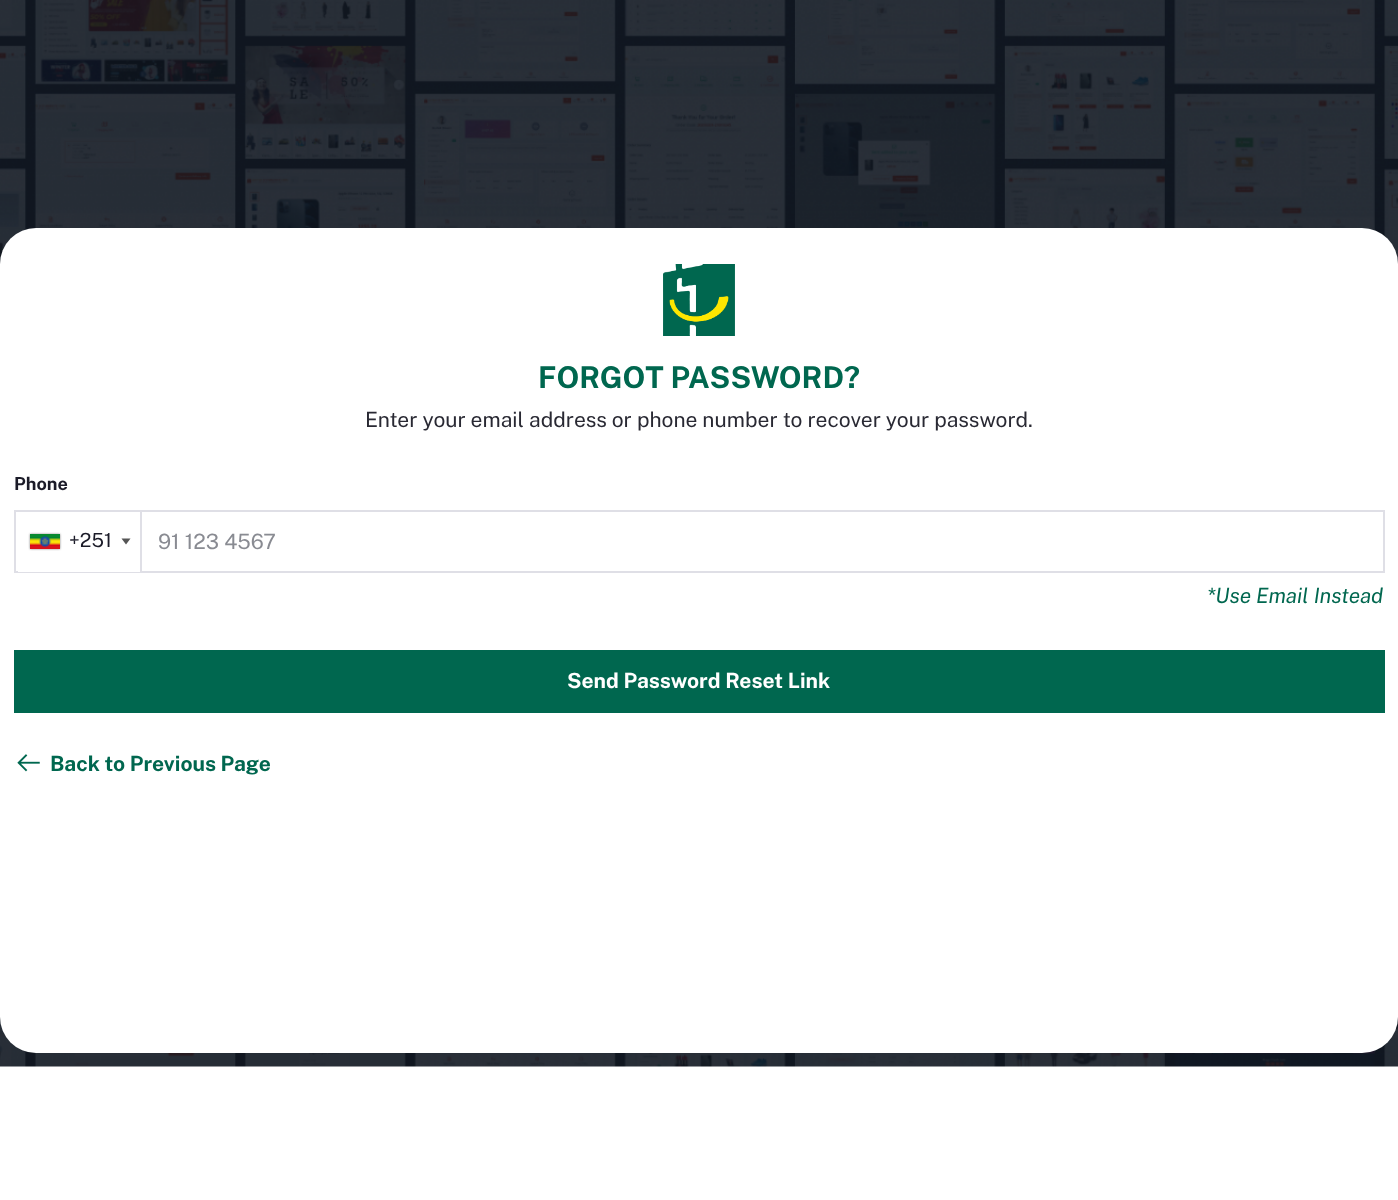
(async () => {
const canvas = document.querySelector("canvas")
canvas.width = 1398
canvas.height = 1200
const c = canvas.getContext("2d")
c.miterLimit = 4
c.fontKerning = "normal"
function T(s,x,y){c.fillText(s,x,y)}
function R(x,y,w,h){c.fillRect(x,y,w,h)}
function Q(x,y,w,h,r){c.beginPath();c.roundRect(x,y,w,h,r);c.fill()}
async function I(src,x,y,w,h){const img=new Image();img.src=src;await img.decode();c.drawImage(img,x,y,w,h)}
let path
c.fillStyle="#fff"
R(0,0,1398,1200)
await I("1.png",0,0,1398,1067)
Q(0,228,1398,825,36)
await I("2.png",663,264,72,72)
c.font="bold 30px Public Sans"
c.fillStyle="#00674f"
T("FORGOT PASSWORD?",538,388)
c.font="21px Public Sans"
c.fillStyle="#292933"
T("Enter your email address or phone number to recover your password.",365,427)
c.font="bold 18px Public Sans"
c.fillStyle="#1b1b28"
T("Phone",14,490)
c.strokeStyle="#dfdfe6"
c.lineWidth=2
c.strokeRect(15,511,1369,61)
c.fillStyle="#fff"
R(18,571,122,1)
c.fillStyle="#dfdfe6"
R(140,512,2,60)
c.fillStyle="#888"
c.filter="blur(1px)"
c.beginPath()
c.rect(30,534,30,15)
c.fill()
c.filter="none"
await I("3.png",30,534,30,15)
c.font="19.5px Public Sans"
c.fillStyle="#1b1b28"
T("+251",69,547)
c.fillStyle="#555"
path = new Path2D("M121.5 538.5h9l-4.5 6z")
c.fill(path)
c.font="21px Public Sans"
c.fillStyle="#898b92"
T("91 123 4567",158,549)
c.font="italic 21px Public Sans"
c.fillStyle="#00674f"
T("*Use Email Instead",1207,603)
R(14,650,1371,63)
c.font="bold 21px Public Sans"
c.fillStyle="#fff"
T("Send Password Reset Link",567,688)
await I("4.png",17,754,23,18)
c.fillStyle="#00674f"
T("Back to Previous Page",50,771)
})()
